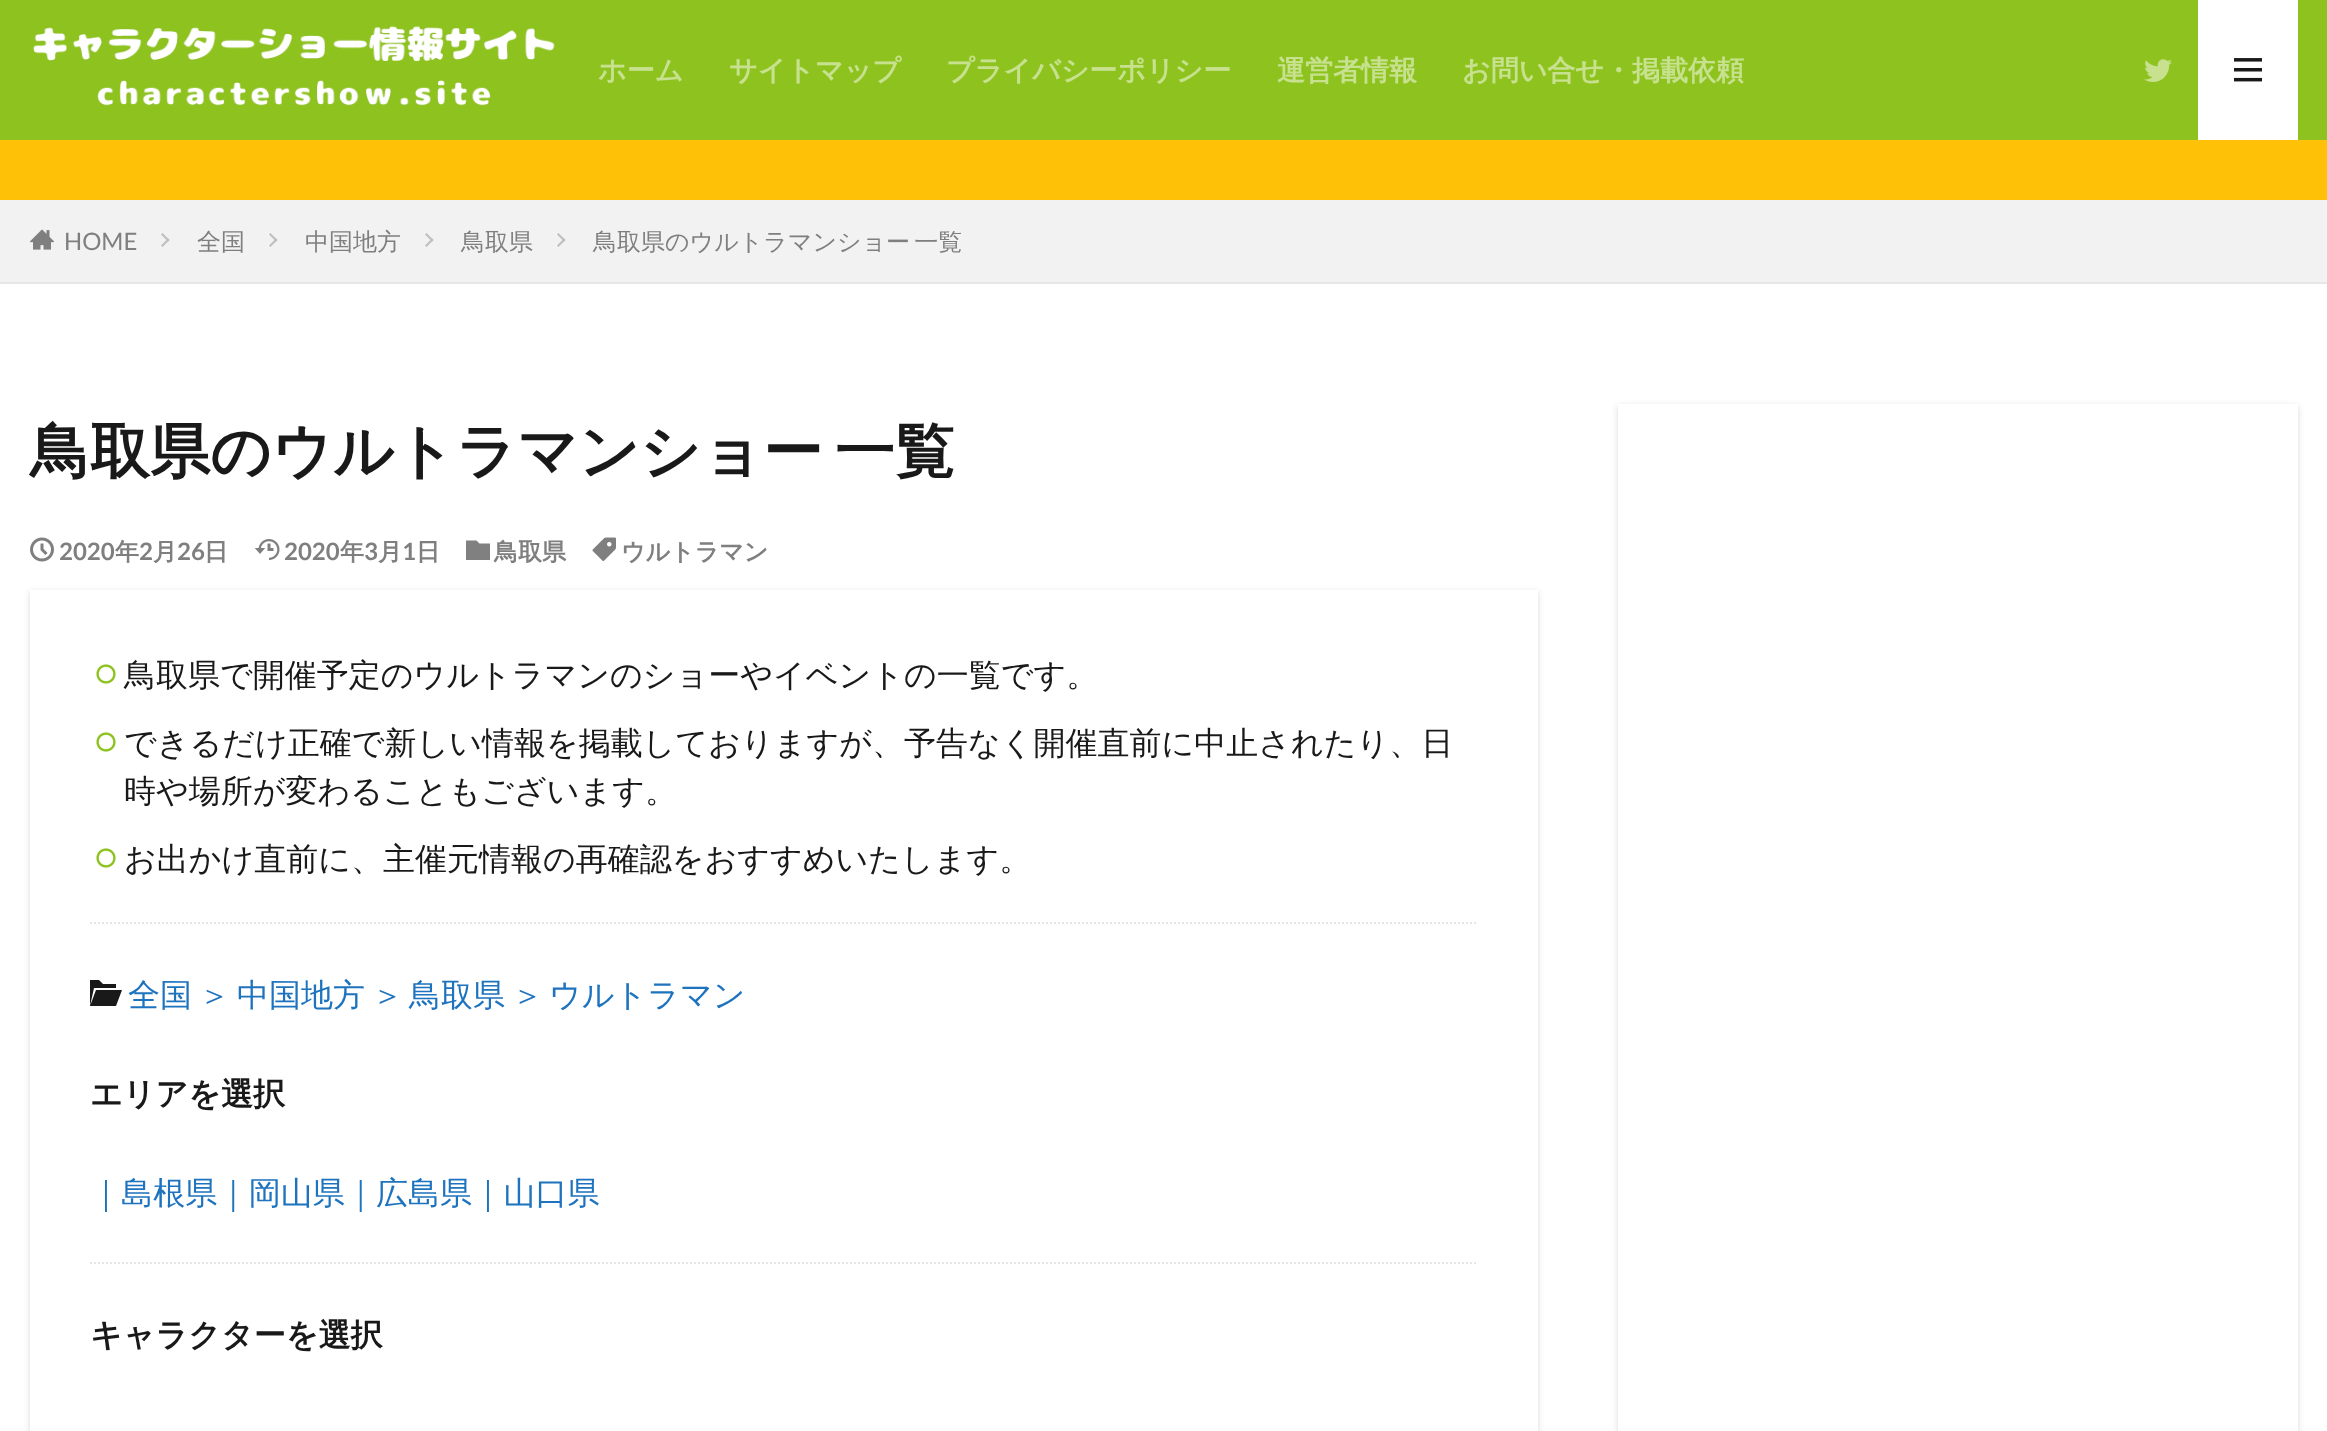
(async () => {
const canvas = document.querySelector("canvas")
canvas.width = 2327
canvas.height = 1431
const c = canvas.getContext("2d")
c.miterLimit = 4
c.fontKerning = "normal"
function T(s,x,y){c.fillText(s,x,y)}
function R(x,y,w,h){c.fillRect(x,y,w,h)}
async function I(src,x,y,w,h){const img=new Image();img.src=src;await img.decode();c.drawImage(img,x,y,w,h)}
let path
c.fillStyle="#fff"
R(0,0,2327,1431)
c.fillStyle="#8ec31f"
R(0,0,2327,140)
await I("1.png",33,26,522,80)
c.font="bold 28px WenQuanYi Zen Hei"
c.fillStyle="#c7e18f"
T("ホーム",598,80)
T("サイトマップ",729,80)
T("プライバシーポリシー",946,80)
T("運営者情報",1277,80)
T("お問い合せ・掲載依頼",1462,80)
await I("2.png",2144,59,28,23)
c.fillStyle="#fff"
R(2198,0,100,140)
await I("3.png",2234,58,28,24)
c.fillStyle="#ffc107"
R(0,140,2327,60)
c.fillStyle="#f2f2f2"
R(0,200,2327,82)
c.fillStyle="#e6e6e6"
R(0,282,2327,2)
await I("4.png",30,229,24,21)
c.font="24px Lato"
c.fillStyle="#7f7f7f"
T("HOME",64,250)
c.fillStyle="#bfbfbf"
path = new Path2D("M162.5 233l7 7l-1.5 1.5l-7-7z")
c.fill(path)
path = new Path2D("M168 238.5l1.5 1.5l-7 7l-1.5-1.5z")
c.fill(path)
c.font="500 24px WenQuanYi Zen Hei"
c.fillStyle="#7f7f7f"
T("全国",197,250)
c.fillStyle="#bfbfbf"
path = new Path2D("M270.5 233l7 7l-1.5 1.5l-7-7z")
c.fill(path)
path = new Path2D("M276 238.5l1.5 1.5l-7 7l-1.5-1.5z")
c.fill(path)
c.fillStyle="#7f7f7f"
T("中国地方",305,250)
c.fillStyle="#bfbfbf"
path = new Path2D("M426.5 233l7 7l-1.5 1.5l-7-7z")
c.fill(path)
path = new Path2D("M432 238.5l1.5 1.5l-7 7l-1.5-1.5z")
c.fill(path)
c.fillStyle="#7f7f7f"
T("鳥取県",461,250)
c.fillStyle="#bfbfbf"
path = new Path2D("M558.5 233l7 7l-1.5 1.5l-7-7z")
c.fill(path)
path = new Path2D("M564 238.5l1.5 1.5l-7 7l-1.5-1.5z")
c.fill(path)
c.wordSpacing="-3px"
c.fillStyle="#7f7f7f"
T("鳥取県のウルトラマンショー 一覧",593,250)
c.wordSpacing="-6px"
c.font="bold 60px WenQuanYi Zen Hei"
c.fillStyle="#191919"
T("鳥取県のウルトラマンショー 一覧",30,472)
await I("5.png",30,537,24,25)
c.wordSpacing="0px"
c.font="bold 24px Lato"
c.fillStyle="#7f7f7f"
T("2020",59,560)
c.font="bold 24px WenQuanYi Zen Hei"
T("年",115,560)
c.font="bold 24px Lato"
T("2",139,560)
c.font="bold 24px WenQuanYi Zen Hei"
T("月",153,560)
c.font="bold 24px Lato"
T("26",177,560)
c.font="bold 24px WenQuanYi Zen Hei"
T("日",204,560)
await I("6.png",255,539,25,21)
c.font="bold 24px Lato"
T("2020",284,560)
c.font="bold 24px WenQuanYi Zen Hei"
T("年",340,560)
c.font="bold 24px Lato"
T("3",364,560)
c.font="bold 24px WenQuanYi Zen Hei"
T("月",378,560)
c.font="bold 24px Lato"
T("1",402,560)
c.font="bold 24px WenQuanYi Zen Hei"
T("日",416,560)
c.fillStyle="#808080"
path = new Path2D("M476.5 540.5l3 3h10.5v16.5h-24v-19.5z")
c.fill(path)
c.fillStyle="#7f7f7f"
T("鳥取県",494,560)
await I("7.png",592,537,24,24)
T("ウルトラマン",621,560)
c.save()
path = new Path2D("M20 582h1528v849h-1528zm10 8h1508v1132h-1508z")
c.clip(path,"evenodd")
c.fillStyle="#00000026"
c.filter="blur(3px)"
c.beginPath()
c.rect(30,592,1508,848)
c.fill()
c.filter="none"
c.restore()
await I("8.png",96,664,20,20)
c.font="500 32px WenQuanYi Zen Hei"
c.fillStyle="#191919"
T("鳥取県で開催予定のウルトラマンのショーやイベントの一覧です。",124,686)
await I("8.png",96,732,20,20)
T("できるだけ正確で新しい情報を掲載しておりますが、予告なく開催直前に中止されたり、日",124,754)
T("時や場所が変わることもございます。",124,802)
await I("8.png",96,848,20,20)
T("お出かけ直前に、主催元情報の再確認をおすすめいたします。",124,870)
path = new Path2D("M90 923h1388")
c.strokeStyle="#e6e6e6"
c.lineWidth=2
c.setLineDash([2,2])
c.stroke(path)
path = new Path2D("M116 1006l6-16h-26l-6 16zm-22-18l-4 18v-26h9l4 4h13v4z")
c.fill(path)
c.wordSpacing="-3px"
c.fillStyle="#1e73be"
T("全国 ＞",128,1006)
T("中国地方 ＞",237,1006)
T("鳥取県 ＞",409,1006)
c.wordSpacing="0px"
T("ウルトラマン",549,1006)
c.font="bold 32px WenQuanYi Zen Hei"
c.fillStyle="#191919"
T("エリアを選択",90,1105)
c.font="500 32px WenQuanYi Zen Hei"
c.fillStyle="#1e73be"
T("｜島根県｜岡山県｜広島県｜山口県",90,1204)
path = new Path2D("M90 1263h1388")
c.stroke(path)
c.font="bold 32px WenQuanYi Zen Hei"
c.fillStyle="#191919"
T("キャラクターを選択",90,1346)
c.save()
path = new Path2D("M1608 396h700v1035h-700zm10 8h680v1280h-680z")
c.clip(path,"evenodd")
c.fillStyle="#00000026"
c.filter="blur(3px)"
c.beginPath()
c.rect(1618,406,680,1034)
c.fill()
c.filter="none"
c.restore()
})()
